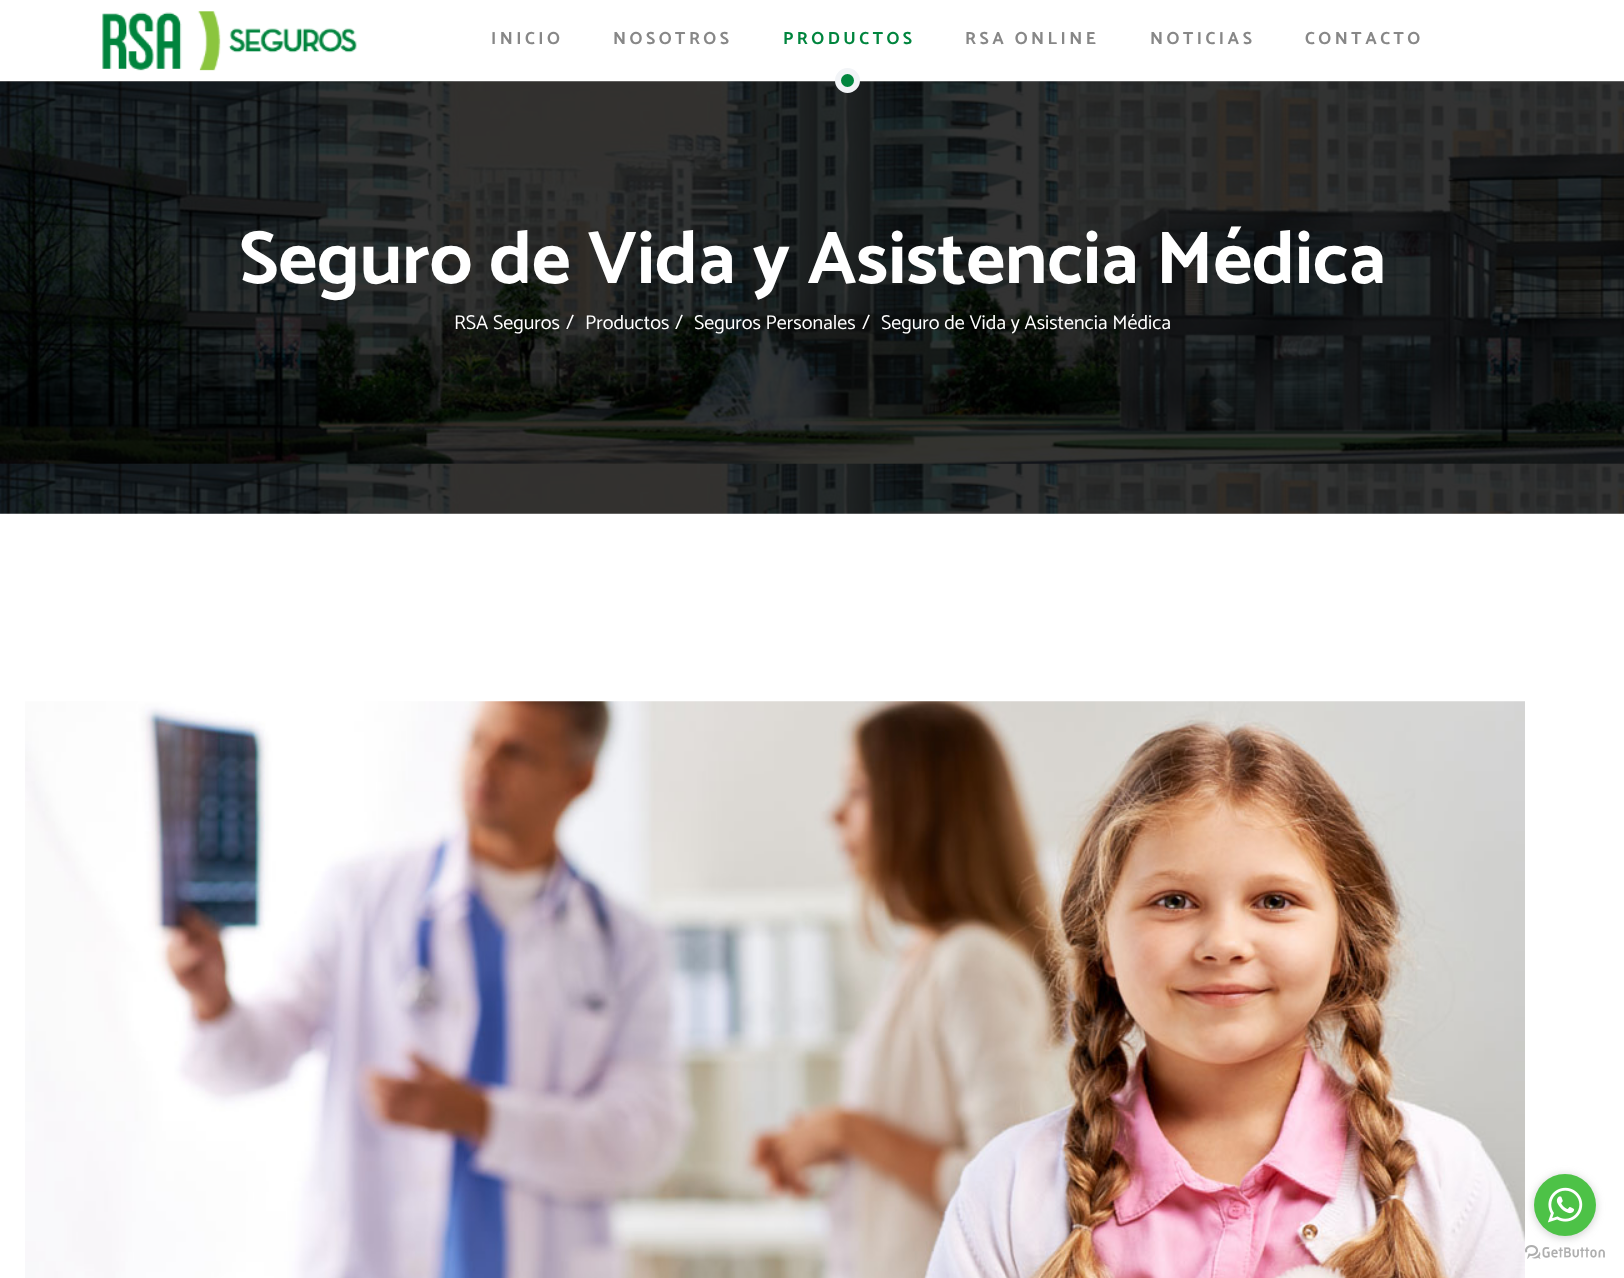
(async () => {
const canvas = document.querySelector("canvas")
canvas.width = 1624
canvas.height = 1278
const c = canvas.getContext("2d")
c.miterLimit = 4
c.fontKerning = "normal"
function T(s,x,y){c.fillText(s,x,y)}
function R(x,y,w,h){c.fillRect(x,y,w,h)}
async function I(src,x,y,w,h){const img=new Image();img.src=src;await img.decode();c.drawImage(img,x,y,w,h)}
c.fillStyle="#fff"
R(0,0,1624,1278)
await I("1.png",102,11,255,60)
c.letterSpacing="3.5px"
c.font="bold 17.5px Catamaran"
c.fillStyle="#878787"
T("INICIO",491,44)
T("NOSOTROS",613,44)
c.fillStyle="#00853e"
T("PRODUCTOS",783,44)
await I("2.png",0,81,1624,433)
c.beginPath()
c.arc(847.5,80.5,9.5,0,7)
c.fill()
c.strokeStyle="#f2f4f7"
c.lineWidth=6
c.stroke()
c.fillStyle="#878787"
T("RSA ONLINE",965,44)
T("NOTICIAS",1150,44)
T("CONTACTO",1305,44)
c.letterSpacing="0px"
c.font="bold 75px Catamaran"
c.fillStyle="#fff"
T("Seguro de Vida y Asistencia Médica",239,283)
c.font="20px Catamaran"
T("RSA Seguros",454,329)
T("/",566,329)
T("Productos",585,329)
T("/",675,329)
T("Seguros Personales",694,329)
T("/",862,329)
T("Seguro de Vida y Asistencia Médica",881,329)
await I("3.png",25,701,1500,577)
await I("5.png",1525,1245,80,14)
c.fillStyle="#88888866"
c.filter="blur(4.5px)"
c.beginPath()
c.roundRect(1534,1175,62,63,31)
c.fill()
c.filter="none"
c.fillStyle="#4dc247"
c.beginPath()
c.arc(1565,1205,31,0,7)
c.fill()
await I("4.png",1547,1187,36,36)
})()
